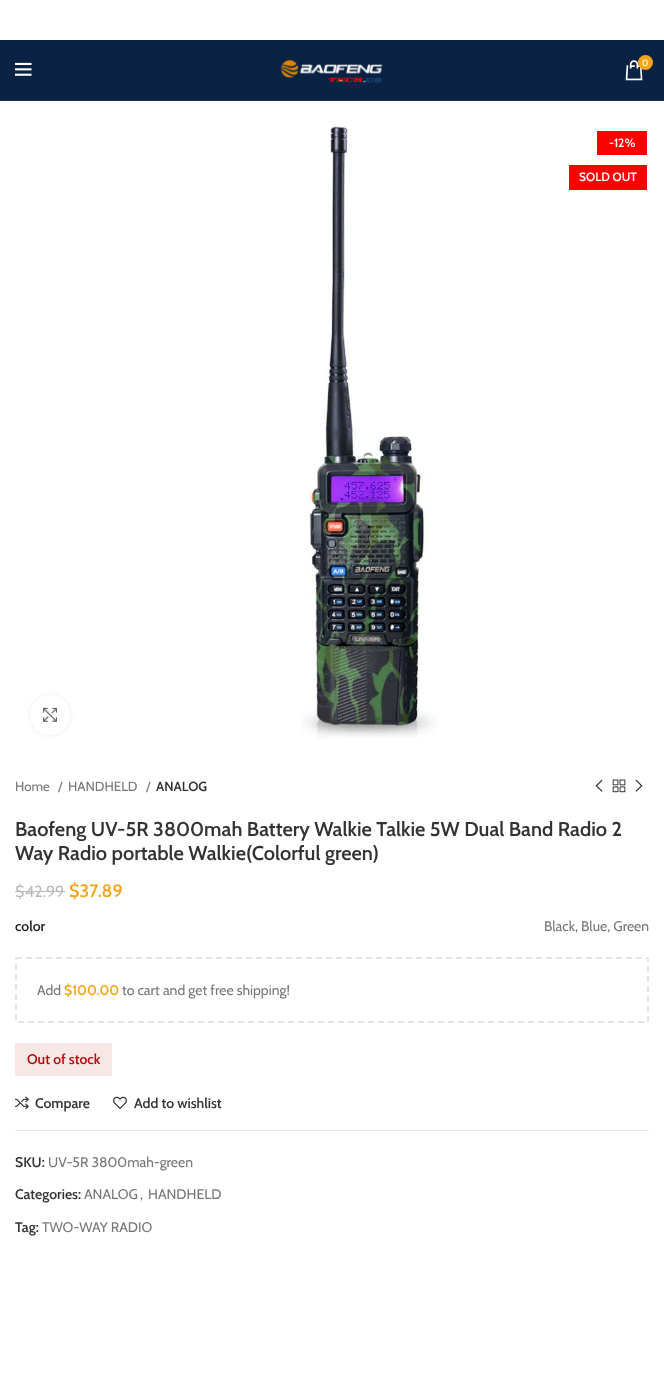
(async () => {
const canvas = document.querySelector("canvas")
canvas.width = 664
canvas.height = 1396
const c = canvas.getContext("2d")
c.miterLimit = 4
c.fontKerning = "normal"
function T(s,x,y){c.fillText(s,x,y)}
function R(x,y,w,h){c.fillRect(x,y,w,h)}
async function I(src,x,y,w,h){const img=new Image();img.src=src;await img.decode();c.drawImage(img,x,y,w,h)}
let path
c.fillStyle="#fff"
R(0,0,664,1396)
c.fillStyle="#0a2244"
R(0,40,664,60)
c.fillStyle="#223550"
R(0,100,664,1)
await I("1.png",15,62,17,14)
await I("2.png",280,59,103,24)
await I("3.png",625,60,18,21)
c.fillStyle="#f4a51c"
c.beginPath()
c.arc(645.5,62.5,7.5,0,7)
c.fill()
c.font="9px Cabin"
c.fillStyle="#fff"
T("0",642,66)
await I("4.png",301,126,136,613)
c.fillStyle="#f00"
R(597,131,50,24)
c.font="600 12px Cabin"
c.fillStyle="#fff"
T("-12%",609,147)
c.fillStyle="#f00"
R(569,165,78,25)
c.fillStyle="#fff"
T("SOLD OUT",579,181)
c.fillStyle="#00000014"
c.filter="blur(2.5px)"
c.beginPath()
c.roundRect(30,695,40,40,20)
c.fill()
c.filter="none"
c.fillStyle="#fff"
c.beginPath()
c.arc(50,715,20,0,7)
c.fill()
await I("5.png",43,707,14,15)
c.font="13.25px Cabin"
c.fillStyle="#777"
T("Home",15,791)
T("/",58,791)
T("HANDHELD",68,791)
T("/",146,791)
c.font="600 13.25px Cabin"
c.fillStyle="#333"
T("ANALOG",156,791)
await I("6.png",595,779,8,13)
await I("7.png",612,779,14,14)
await I("8.png",635,779,8,13)
c.font="600 20px Cabin"
T("Baofeng UV-5R 3800mah Battery Walkie Talkie 5W Dual Band Radio 2",15,836)
T("Way Radio portable Walkie(Colorful green)",15,860)
c.font="16px Cabin"
c.fillStyle="#bbb"
T("$",15,897)
R(15,891,10,1)
R(25,891,40,1)
T("42.99",25,897)
c.font="600 18px Cabin"
c.fillStyle="#f4a51c"
T("$37.89",69,897)
c.font="600 14px Cabin"
c.fillStyle="#242424"
T("color",15,931)
c.font="14px Cabin"
c.fillStyle="#777"
T("Black, Blue, Green",544,931)
path = new Path2D("M16 958h632v64h-632z")
c.strokeStyle="#e4e4e4"
c.lineWidth=2
c.setLineDash([6,4])
c.stroke(path)
T("Add",37,995)
c.font="600 14px Cabin"
c.fillStyle="#f4a51c"
T("$100.00",64,995)
c.font="14px Cabin"
c.fillStyle="#777"
T("to cart and get free shipping!",122,995)
c.fillStyle="#f8e7e7"
R(15,1043,97,33)
c.font="600 14px Cabin"
c.fillStyle="#b50808"
T("Out of stock",27,1064)
await I("9.png",15,1096,14,14)
c.fillStyle="#333"
T("Compare",35,1108)
await I("10.png",113,1096,14,13)
T("Add to wishlist",134,1108)
c.fillStyle="#e4e4e4"
R(15,1130,634,1)
c.fillStyle="#333"
T("SKU:",15,1167)
c.font="14px Cabin"
c.fillStyle="#777"
T("UV-5R 3800mah-green",48,1167)
c.font="600 14px Cabin"
c.fillStyle="#333"
T("Categories:",15,1199)
c.font="14px Cabin"
c.fillStyle="#777"
T("ANALOG",84,1199)
T(",",140,1199)
T("HANDHELD",148,1199)
c.font="600 14px Cabin"
c.fillStyle="#333"
T("Tag:",15,1232)
c.font="14px Cabin"
c.fillStyle="#777"
T("TWO-WAY RADIO",42,1232)
})()
